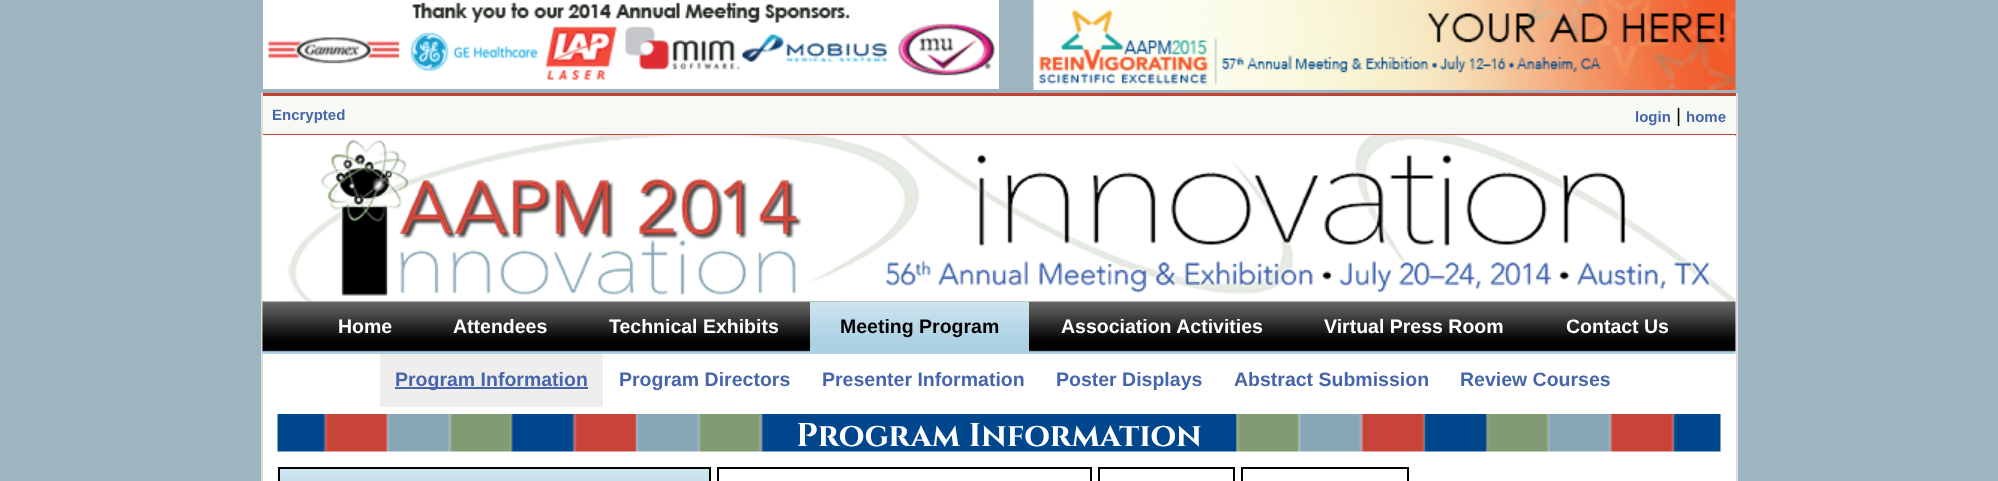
(async () => {
const canvas = document.querySelector("canvas")
canvas.width = 1998
canvas.height = 481
const c = canvas.getContext("2d")
c.miterLimit = 4
c.fontKerning = "normal"
function T(s,x,y){c.fillText(s,x,y)}
function R(x,y,w,h){c.fillRect(x,y,w,h)}
async function I(src,x,y,w,h){const img=new Image();img.src=src;await img.decode();c.drawImage(img,x,y,w,h)}
c.fillStyle="#9eb5c1"
R(0,0,1998,481)
c.fillStyle="#fff"
R(263,136,1473,345)
c.fillStyle="#ddd"
R(1736,93,2,388)
R(261,93,2,388)
c.fillStyle="#fff"
R(263,0,736,89)
await I("1.png",268,2,727,78)
await I("2.png",1033,0,703,90)
c.fillStyle="#c14232"
R(263,93,1473,3)
R(263,134,1473,2)
c.fillStyle="#f7f9f5"
R(263,96,1473,38)
c.font="bold 15px Liberation Sans"
c.fillStyle="#4665aa"
T("Encrypted",272,120)
T("login",1635,122)
c.font="19.5px Liberation Sans"
c.fillStyle="#000"
T("|",1676,122)
c.font="bold 15px Liberation Sans"
c.fillStyle="#4665aa"
T("home",1686,122)
await I("3.png",262,135,1474,167)
await I("4.png",262,301,1474,53)
await I("5.png",810,301,219,51)
c.fillStyle="#bfc8cd"
R(840,301,189,1)
c.font="bold 19.5px Liberation Sans"
c.fillStyle="#000"
T("Meeting Program",840,333)
c.fillStyle="#efeeed"
R(380,354,223,53)
c.fillStyle="#4665aa"
R(395,387,193,2)
T("Program Information",395,386)
T("Program Directors",619,386)
T("Presenter Information",822,386)
T("Poster Displays",1056,386)
T("Abstract Submission",1234,386)
T("Review Courses",1460,386)
c.fillStyle="#fff"
T("Home",338,333)
T("Attendees",453,333)
T("Technical Exhibits",609,333)
T("Association Activities",1061,333)
T("Virtual Press Room",1324,333)
T("Contact Us",1566,333)
await I("6.png",277,414,1444,38)
c.font="bold 33px Cinzel"
T("Program Information",796,446)
await I("7.png",277,468,432,13)
c.strokeStyle="#000"
c.lineWidth=2
c.strokeRect(279,468,431,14)
c.strokeRect(718,468,373,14)
c.strokeRect(1099,468,135,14)
c.strokeRect(1242,468,166,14)
})()
